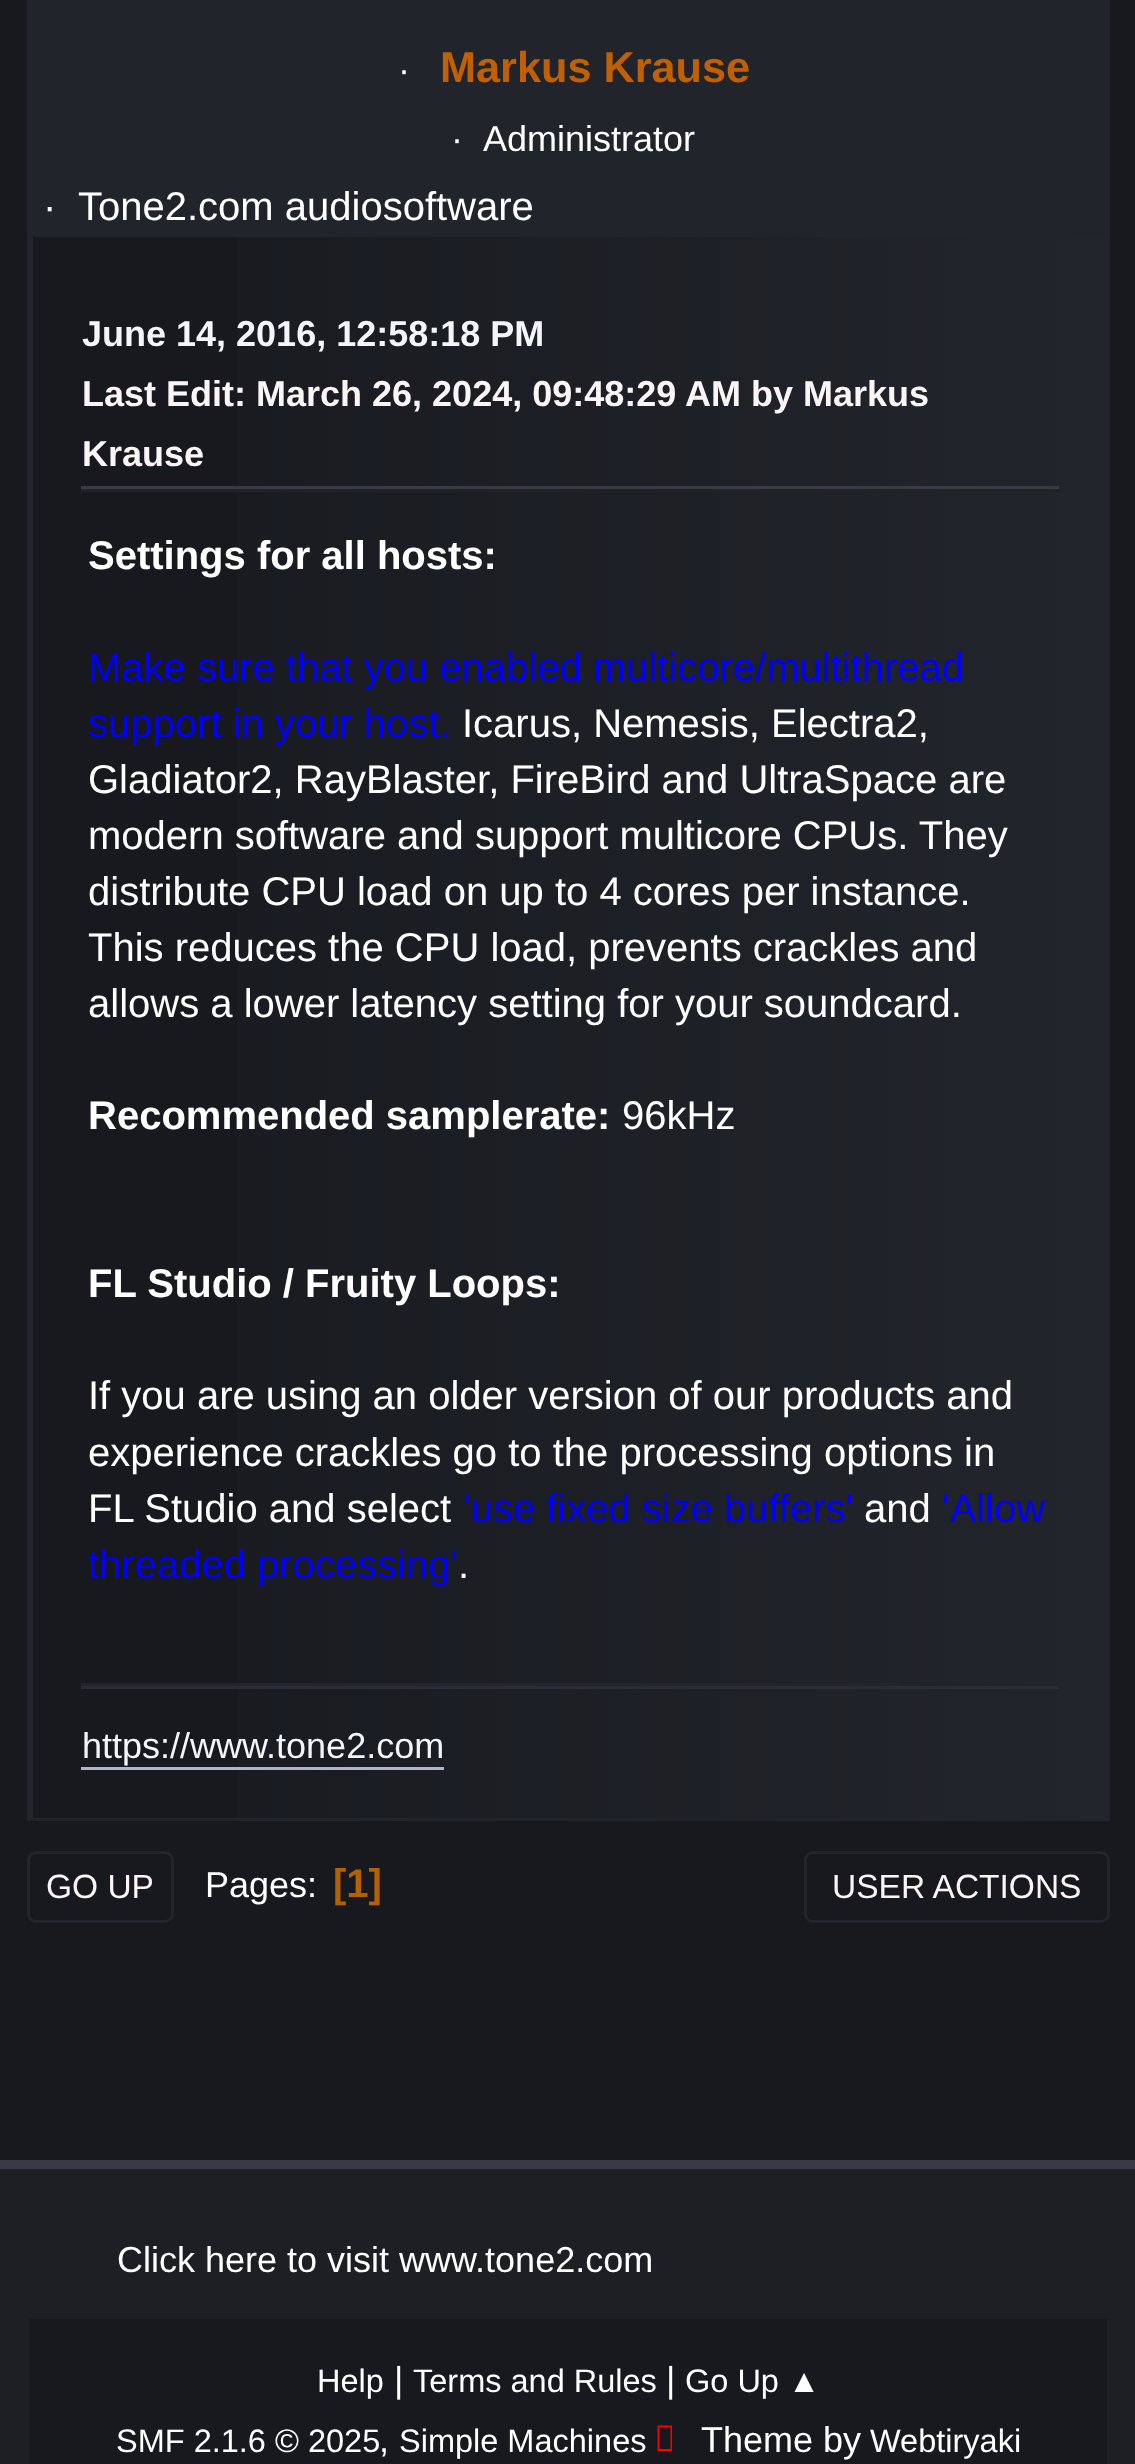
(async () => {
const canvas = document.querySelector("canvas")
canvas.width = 1135
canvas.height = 2464
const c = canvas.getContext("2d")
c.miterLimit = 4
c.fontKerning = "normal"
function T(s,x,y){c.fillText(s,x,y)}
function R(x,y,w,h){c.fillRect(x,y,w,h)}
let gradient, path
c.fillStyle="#17191f"
R(0,0,1135,2464)
gradient = c.createLinearGradient(30,780,1107,780)
gradient.addColorStop(0,"#17191f")
gradient.addColorStop(1,"#23252c")
c.fillStyle = gradient
R(237,237,870,1581)
c.strokeStyle="#22242b"
c.lineWidth=3
c.strokeRect(28.5,-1.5,1080,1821)
c.fillStyle="#22242b"
R(30,0,1077,237)
c.font="36px Liberation Sans"
c.fillStyle="#fff"
T("·",398,82)
c.font="bold 43.25px Liberation Sans"
c.fillStyle="#c06002"
T("Markus Krause",440,82)
c.font="36px Liberation Sans"
c.fillStyle="#fff"
T("·",451,151)
T("Administrator",483,151)
c.font="40px Liberation Sans"
T("·",43,220)
T("Tone2.com audiosoftware",78,220)
c.fillStyle="#22252c"
R(30,237,3,1581)
c.font="bold 36px Liberation Sans"
c.fillStyle="#f4f5f8"
T("June 14, 2016, 12:58:18 PM",82,346)
c.fillStyle="#fcf5f5"
T("Last Edit: March 26, 2024, 09:48:29 AM by Markus",82,406)
T("Krause",82,466)
c.fillStyle="#222"
R(81,489,978,3)
c.fillStyle="#383b46"
R(81,486,978,3)
c.font="bold 40px Liberation Sans"
c.fillStyle="#fff"
T("Settings for all hosts:",88,569)
c.font="40px Liberation Sans"
c.fillStyle="#00f"
T("Make sure that you enabled multicore/multithread",88,681)
T("support in your host.",88,737)
c.fillStyle="#fff"
T("Icarus, Nemesis, Electra2,",462,737)
T("Gladiator2, RayBlaster, FireBird and UltraSpace are",88,793)
T("modern software and support multicore CPUs. They",88,849)
T("distribute CPU load on up to 4 cores per instance.",88,905)
T("This reduces the CPU load, prevents crackles and",88,961)
T("allows a lower latency setting for your soundcard.",88,1017)
c.font="bold 40px Liberation Sans"
T("Recommended samplerate:",88,1129)
c.font="40px Liberation Sans"
T("96kHz",622,1129)
c.font="bold 40px Liberation Sans"
T("FL Studio / Fruity Loops:",88,1297)
c.font="40px Liberation Sans"
T("If you are using an older version of our products and",88,1409)
T("experience crackles go to the processing options in",88,1466)
T("FL Studio and select",88,1522)
c.fillStyle="#00f"
T("'use fixed size buffers'",463,1522)
c.fillStyle="#fff"
T("and",864,1522)
c.fillStyle="#00f"
T("'Allow",942,1522)
T("threaded processing'",88,1578)
c.fillStyle="#fff"
T(".",458,1578)
c.fillStyle="#2a2d35"
R(81,1686,978,3)
c.fillStyle="#23252c"
R(81,1683,819,3)
c.font="36px Liberation Sans"
c.fillStyle="#f4f5f8"
T("https://www.tone2.com",82,1758)
c.fillStyle="#a8b6cf"
R(81,1767,363,3)
c.beginPath()
c.roundRect(28.5,1852.5,144,69,7.5)
c.strokeStyle="#22252c"
c.stroke()
c.font="33.5px Liberation Sans"
c.fillStyle="#fcf5f5"
T("GO UP",46,1898)
c.font="36px Liberation Sans"
c.fillStyle="#fff"
T("Pages:",205,1897)
c.font="bold 40px Liberation Sans"
c.fillStyle="#b46100"
T("[1]",333,1897)
c.beginPath()
c.roundRect(805.5,1852.5,303,69,7.5)
c.stroke()
c.font="33.5px Liberation Sans"
c.fillStyle="#fcf5f5"
T("USER ACTIONS",832,1898)
c.fillStyle="#1d1f25"
R(0,2169,1135,295)
c.fillStyle="#383b46"
R(0,2160,1135,9)
c.font="36px Liberation Sans"
c.fillStyle="#fff"
T("Click here to visit www.tone2.com",117,2272)
c.fillStyle="#17191f"
R(30,2319,1077,145)
c.font="32.5px Liberation Sans"
c.fillStyle="#fff"
T("Help",317,2392)
c.font="36px Liberation Sans"
T("|",394,2392)
c.font="32.5px Liberation Sans"
T("Terms and Rules",413,2392)
c.font="36px Liberation Sans"
T("|",666,2392)
c.font="32.5px Liberation Sans"
T("Go Up ▲",685,2392)
T("SMF 2.1.6 © 2025",116,2452)
c.font="36px Liberation Sans"
T(",",379,2452)
c.font="32.5px Liberation Sans"
T("Simple Machines",399,2452)
c.fillStyle="#f00"
path = new Path2D("M657.5 2451v-25.5h14.5v25.5zm1.5-2h11.5v-22h-11.5z")
c.fill(path)
c.font="36px Liberation Sans"
c.fillStyle="#fff"
T("Theme by",701,2452)
c.font="32.5px Liberation Sans"
T("Webtiryaki",870,2452)
})()
